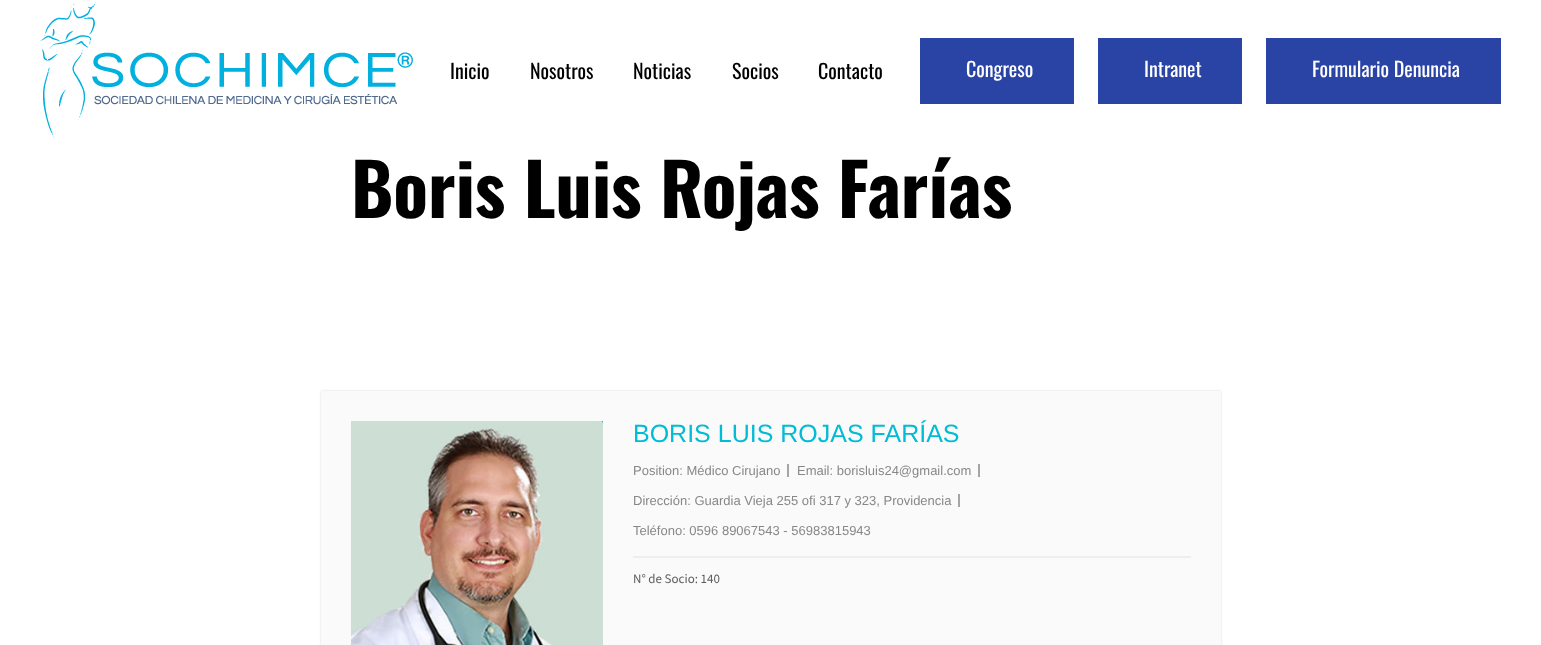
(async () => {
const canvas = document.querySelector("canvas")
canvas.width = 1541
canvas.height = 645
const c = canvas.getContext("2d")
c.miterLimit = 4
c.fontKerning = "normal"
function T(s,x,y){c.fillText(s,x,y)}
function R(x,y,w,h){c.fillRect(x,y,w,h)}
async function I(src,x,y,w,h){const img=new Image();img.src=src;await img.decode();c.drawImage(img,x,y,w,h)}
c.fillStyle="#fff"
R(0,0,1541,645)
await I("1.png",40,2,373,137)
c.font="20px Oswald"
c.fillStyle="#000"
T("Inicio",450,79)
T("Nosotros",530,79)
T("Noticias",633,79)
T("Socios",732,79)
T("Contacto",818,79)
c.fillStyle="#2a44a6"
R(920,38,154,66)
c.fillStyle="#fff"
T("Congreso",966,77)
c.fillStyle="#2a44a6"
R(1098,38,144,66)
c.fillStyle="#fff"
T("Intranet",1144,77)
c.fillStyle="#2a44a6"
R(1266,38,235,66)
c.fillStyle="#fff"
T("Formulario Denuncia",1312,77)
c.font="bold 72px Oswald"
c.fillStyle="#000"
T("Boris Luis Rojas Farías",351,218)
c.fillStyle="#00000026"
c.filter="blur(1px)"
c.beginPath()
c.rect(321,391,900,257)
c.fill()
c.filter="none"
c.fillStyle="#fafafa"
R(321,391,900,254)
await I("2.png",351,421,252,224)
c.fillStyle="#eee"
R(633,556,558,2)
c.font="25px Liberation Sans"
c.fillStyle="#00bcd4"
T("BORIS LUIS ROJAS FARÍAS",633,442)
c.fillStyle="#a5a5a5"
R(787,464,2,13)
c.font="13px Liberation Sans"
c.fillStyle="#888"
T("Position: Médico Cirujano",633,475)
c.fillStyle="#a5a5a5"
R(978,464,2,13)
c.fillStyle="#888"
T("Email: borisluis24@gmail.com",797,475)
c.fillStyle="#a5a5a5"
R(958,494,2,13)
c.fillStyle="#888"
T("Dirección: Guardia Vieja 255 ofi 317 y 323, Providencia",633,505)
T("Teléfono: 0596 89067543 - 56983815943",633,535)
c.font="13px Source Sans Pro"
c.fillStyle="#5f5c5c"
T("N° de Socio: 140",633,583)
})()
